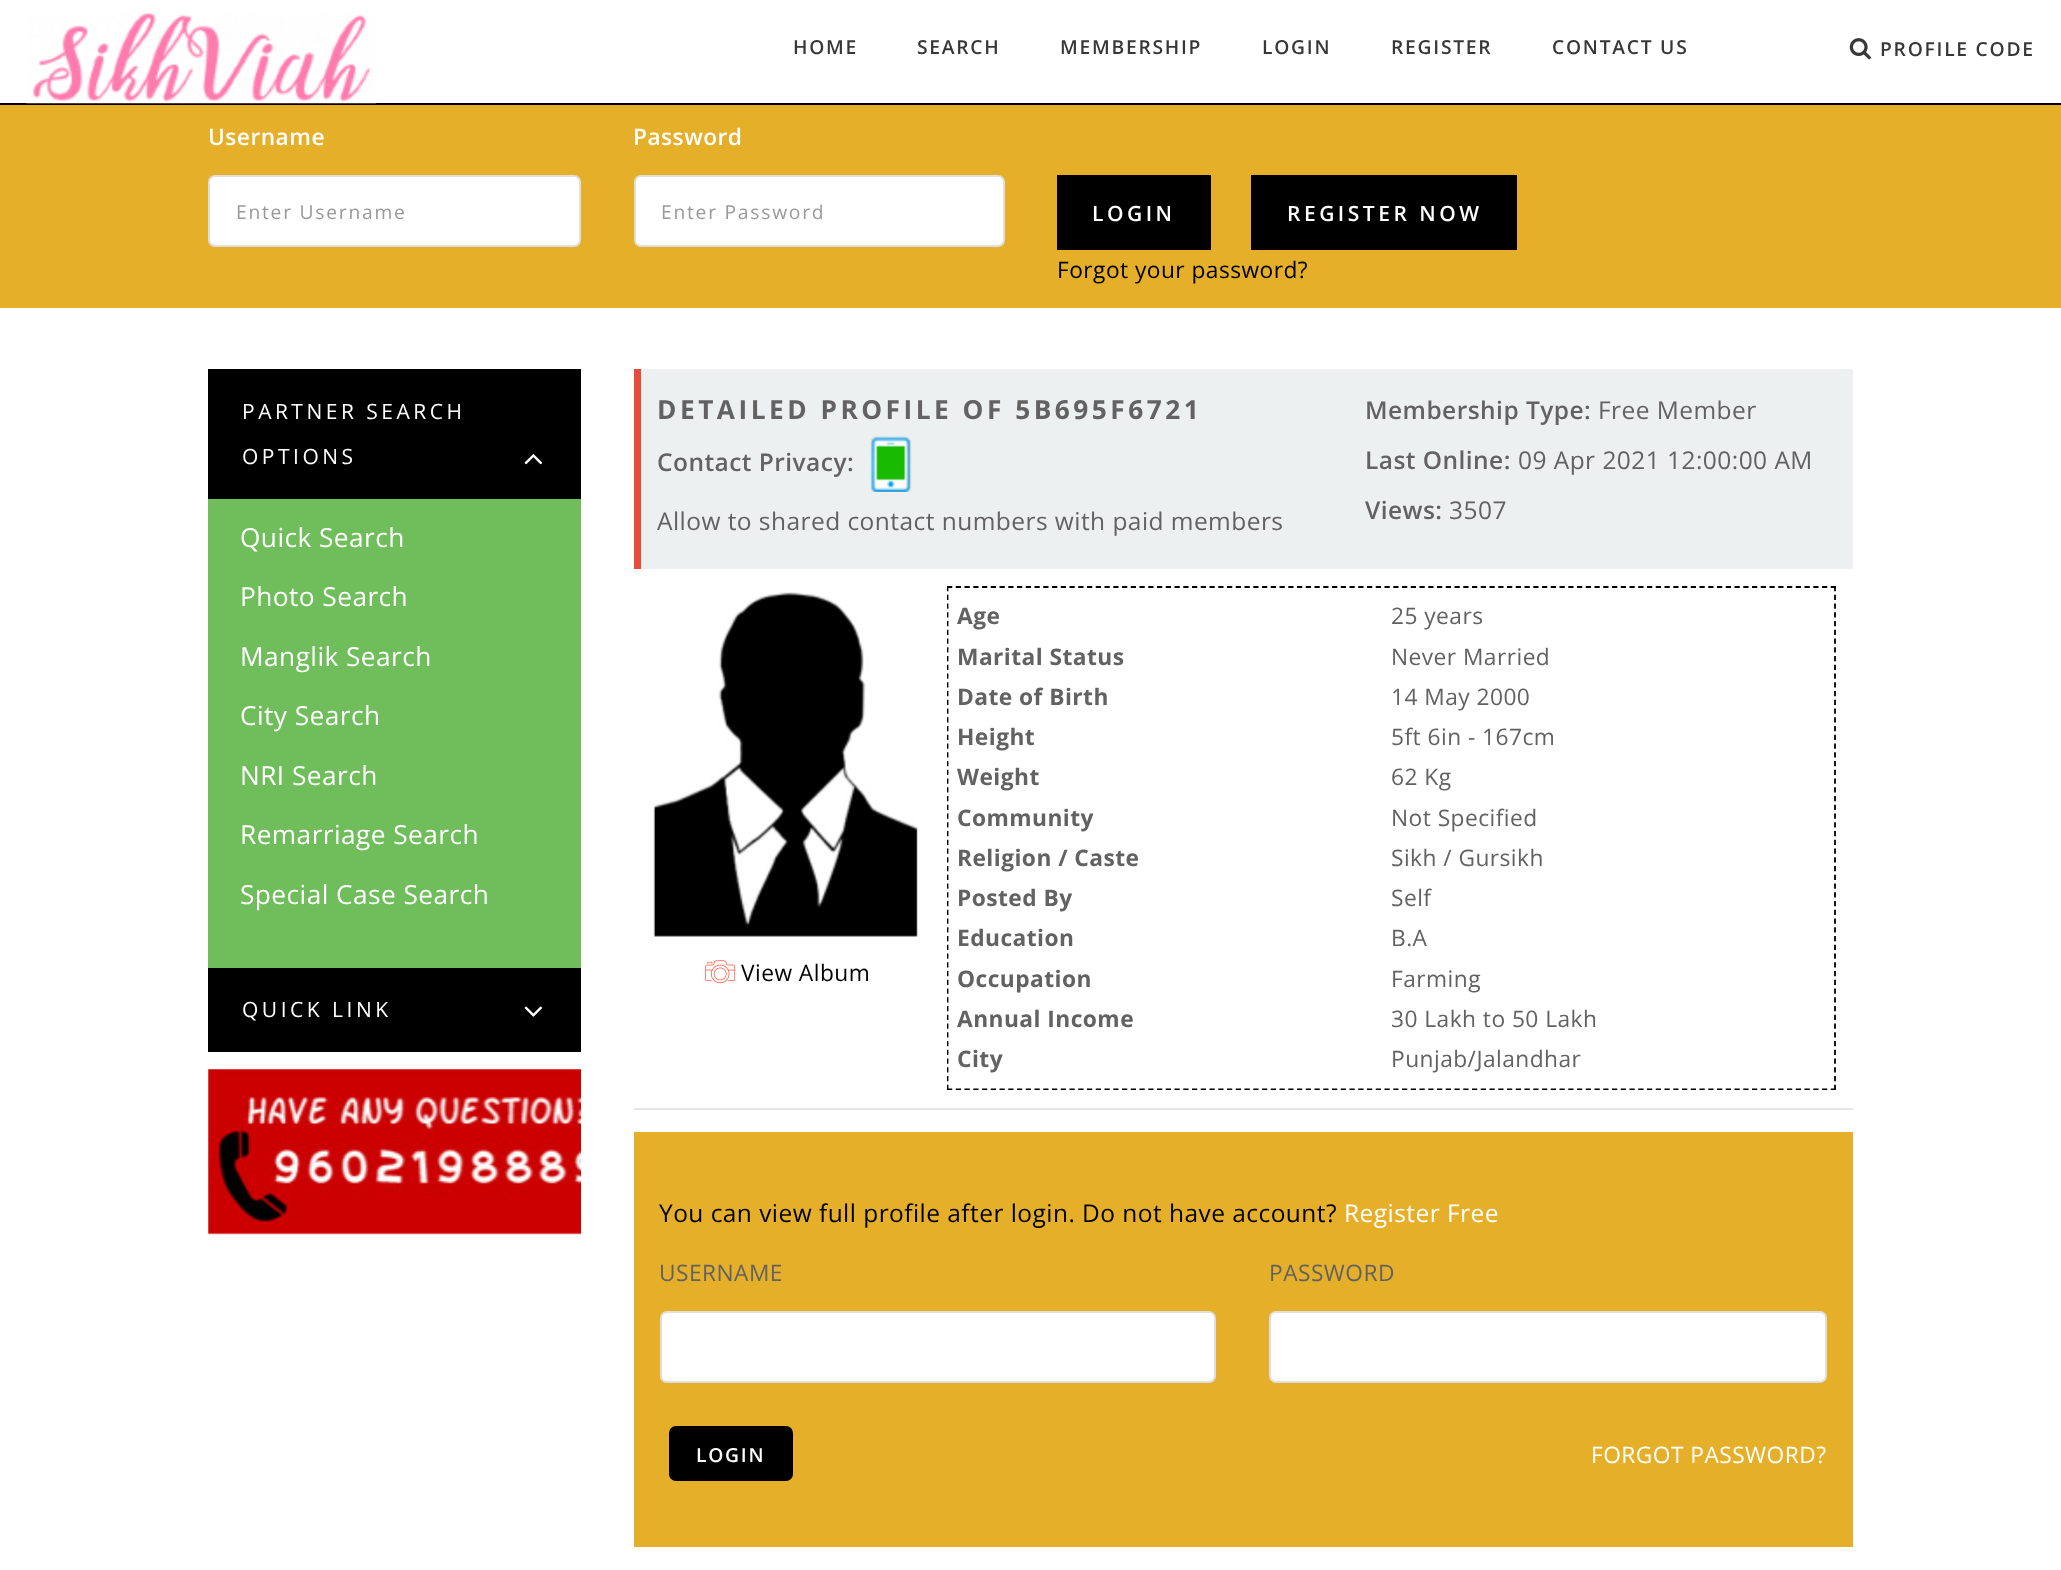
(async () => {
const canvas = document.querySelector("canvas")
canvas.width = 2061
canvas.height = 1570
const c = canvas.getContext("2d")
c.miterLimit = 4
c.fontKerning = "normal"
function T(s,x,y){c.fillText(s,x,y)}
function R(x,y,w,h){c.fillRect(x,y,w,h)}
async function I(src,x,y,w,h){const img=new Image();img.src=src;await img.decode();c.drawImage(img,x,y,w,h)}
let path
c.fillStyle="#fff"
R(0,0,2061,1570)
c.fillStyle="#000"
R(0,103,2061,2)
await I("1.png",26,12,351,92)
c.letterSpacing="1.75px"
c.font="600 19.25px Open Sans"
c.fillStyle="#373737"
T("HOME",793,54)
T("SEARCH",917,54)
T("MEMBERSHIP",1060,54)
T("LOGIN",1262,54)
T("REGISTER",1391,54)
T("CONTACT US",1552,54)
await I("2.png",1849,38,22,22)
T("PROFILE CODE",1880,56)
c.fillStyle="#e6af2a"
R(0,105,2061,203)
c.letterSpacing="0.45px"
c.font="600 22.75px Open Sans"
c.fillStyle="#fff"
T("Username",208,145)
c.beginPath()
c.roundRect(209,176,371,70,6)
c.fill()
c.strokeStyle="#dfdfdf"
c.lineWidth=2
c.stroke()
c.letterSpacing="1.75px"
c.font="19.25px Open Sans"
c.fillStyle="#999"
T("Enter Username",236,219)
c.letterSpacing="0.45px"
c.font="600 22.75px Open Sans"
c.fillStyle="#fff"
T("Password",633,145)
c.beginPath()
c.roundRect(635,176,369,70,6)
c.fill()
c.stroke()
c.letterSpacing="1.75px"
c.font="19.25px Open Sans"
c.fillStyle="#999"
T("Enter Password",661,219)
c.fillStyle="#000"
R(1057,175,154,75)
c.letterSpacing="3.5px"
c.font="600 21px Open Sans"
c.fillStyle="#fff"
T("LOGIN",1092,221)
c.fillStyle="#000"
R(1251,175,266,75)
c.fillStyle="#fff"
T("REGISTER NOW",1287,221)
c.letterSpacing="0.45px"
c.font="22.75px Open Sans"
c.fillStyle="#000"
T("Forgot your password?",1057,278)
R(208,369,373,130)
c.letterSpacing="3.5px"
c.font="21px Open Sans"
c.fillStyle="#fff"
T("PARTNER SEARCH",242,419)
T("OPTIONS",242,464)
await I("3.png",524,454,19,11)
c.fillStyle="#70bd5b"
R(208,499,373,469)
c.letterSpacing="0.45px"
c.font="26.25px Open Sans"
c.fillStyle="#fff"
T("Quick Search",240,547)
T("Photo Search",240,606)
T("Manglik Search",240,666)
T("City Search",240,725)
T("NRI Search",240,785)
T("Remarriage Search",240,844)
T("Special Case Search",240,904)
c.fillStyle="#000"
R(208,968,373,84)
c.letterSpacing="3.5px"
c.font="21px Open Sans"
c.fillStyle="#fff"
T("QUICK LINK",242,1017)
await I("4.png",524,1006,19,11)
await I("5.png",208,1069,373,166)
c.fillStyle="#ecf0f1"
R(641,369,1212,200)
c.fillStyle="#e74c3c"
R(634,369,7,200)
c.font="bold 26.25px Open Sans"
c.fillStyle="#626262"
T("DETAILED PROFILE OF 5B695F6721",657,419)
c.letterSpacing="0.45px"
c.font="600 24.5px Open Sans"
T("Contact Privacy:",657,471)
await I("6.png",870,436,42,56)
c.font="24.5px Open Sans"
T("Allow to shared contact numbers with paid members",657,530)
c.font="600 24.5px Open Sans"
T("Membership Type:",1365,419)
c.font="24.5px Open Sans"
T("Free Member",1598,419)
c.font="600 24.5px Open Sans"
T("Last Online:",1365,469)
c.font="24.5px Open Sans"
T("09 Apr 2021 12:00:00 AM",1518,469)
c.font="600 24.5px Open Sans"
T("Views:",1365,519)
c.font="24.5px Open Sans"
T("3507",1449,519)
c.fillStyle="#e5e5e5"
R(634,1108,1219,2)
await I("7.png",653,592,265,345)
await I("8.png",705,960,31,24)
c.font="22.75px Open Sans"
c.fillStyle="#000"
T("View Album",741,981)
path = new Path2D("M947 587h889")
c.strokeStyle="#000"
c.lineWidth=1.8
c.setLineDash([5.25,3.5])
c.stroke(path)
path = new Path2D("M1835 586v504")
c.stroke(path)
c.save()
c.beginPath()
c.rect(947,586,889,504)
c.clip()
path = new Path2D("M947 1089.5h889")
c.stroke(path)
path = new Path2D("M947.5 586v504")
c.stroke(path)
c.restore()
c.font="bold 22.75px Open Sans"
c.fillStyle="#626262"
T("Age",957,624)
c.font="22.75px Open Sans"
T("25 years",1391,624)
c.font="bold 22.75px Open Sans"
T("Marital Status",957,665)
c.font="22.75px Open Sans"
T("Never Married",1391,665)
c.font="bold 22.75px Open Sans"
T("Date of Birth",957,705)
c.font="22.75px Open Sans"
T("14 May 2000",1391,705)
c.font="bold 22.75px Open Sans"
T("Height",957,745)
c.font="22.75px Open Sans"
T("5ft 6in - 167cm",1391,745)
c.font="bold 22.75px Open Sans"
T("Weight",957,785)
c.font="22.75px Open Sans"
T("62 Kg",1391,785)
c.font="bold 22.75px Open Sans"
T("Community",957,826)
c.font="22.75px Open Sans"
T("Not Specified",1391,826)
c.font="bold 22.75px Open Sans"
T("Religion / Caste",957,866)
c.font="22.75px Open Sans"
T("Sikh / Gursikh",1391,866)
c.font="bold 22.75px Open Sans"
T("Posted By",957,906)
c.font="22.75px Open Sans"
T("Self",1391,906)
c.font="bold 22.75px Open Sans"
T("Education",957,946)
c.font="22.75px Open Sans"
T("B.A",1391,946)
c.font="bold 22.75px Open Sans"
T("Occupation",957,987)
c.font="22.75px Open Sans"
T("Farming",1391,987)
c.font="bold 22.75px Open Sans"
T("Annual Income",957,1027)
c.font="22.75px Open Sans"
T("30 Lakh to 50 Lakh",1391,1027)
c.font="bold 22.75px Open Sans"
T("City",957,1067)
c.font="22.75px Open Sans"
T("Punjab/Jalandhar",1391,1067)
c.fillStyle="#e6af2a"
R(634,1132,1219,415)
c.font="24.5px Open Sans"
c.fillStyle="#000"
T("You can view full profile after login. Do not have account?",659,1222)
c.fillStyle="#fff"
T("Register Free",1344,1222)
c.font="22.75px Open Sans"
c.fillStyle="#626262"
T("USERNAME",659,1281)
c.fillStyle="#fff"
c.beginPath()
c.roundRect(661,1312,554,70,6)
c.fill()
c.strokeStyle="#dfdfdf"
c.lineWidth=2
c.setLineDash([])
c.stroke()
c.fillStyle="#626262"
T("PASSWORD",1269,1281)
c.fillStyle="#fff"
c.beginPath()
c.roundRect(1270,1312,556,70,6)
c.fill()
c.stroke()
c.fillStyle="#000"
c.beginPath()
c.roundRect(671,1428,120,51,5)
c.fill()
c.strokeStyle="#000"
c.lineWidth=4
c.stroke()
c.letterSpacing="1.75px"
c.font="600 19.25px Open Sans"
c.fillStyle="#fff"
T("LOGIN",696,1462)
c.letterSpacing="0.45px"
c.font="22.75px Open Sans"
T("FORGOT PASSWORD?",1591,1463)
})()
